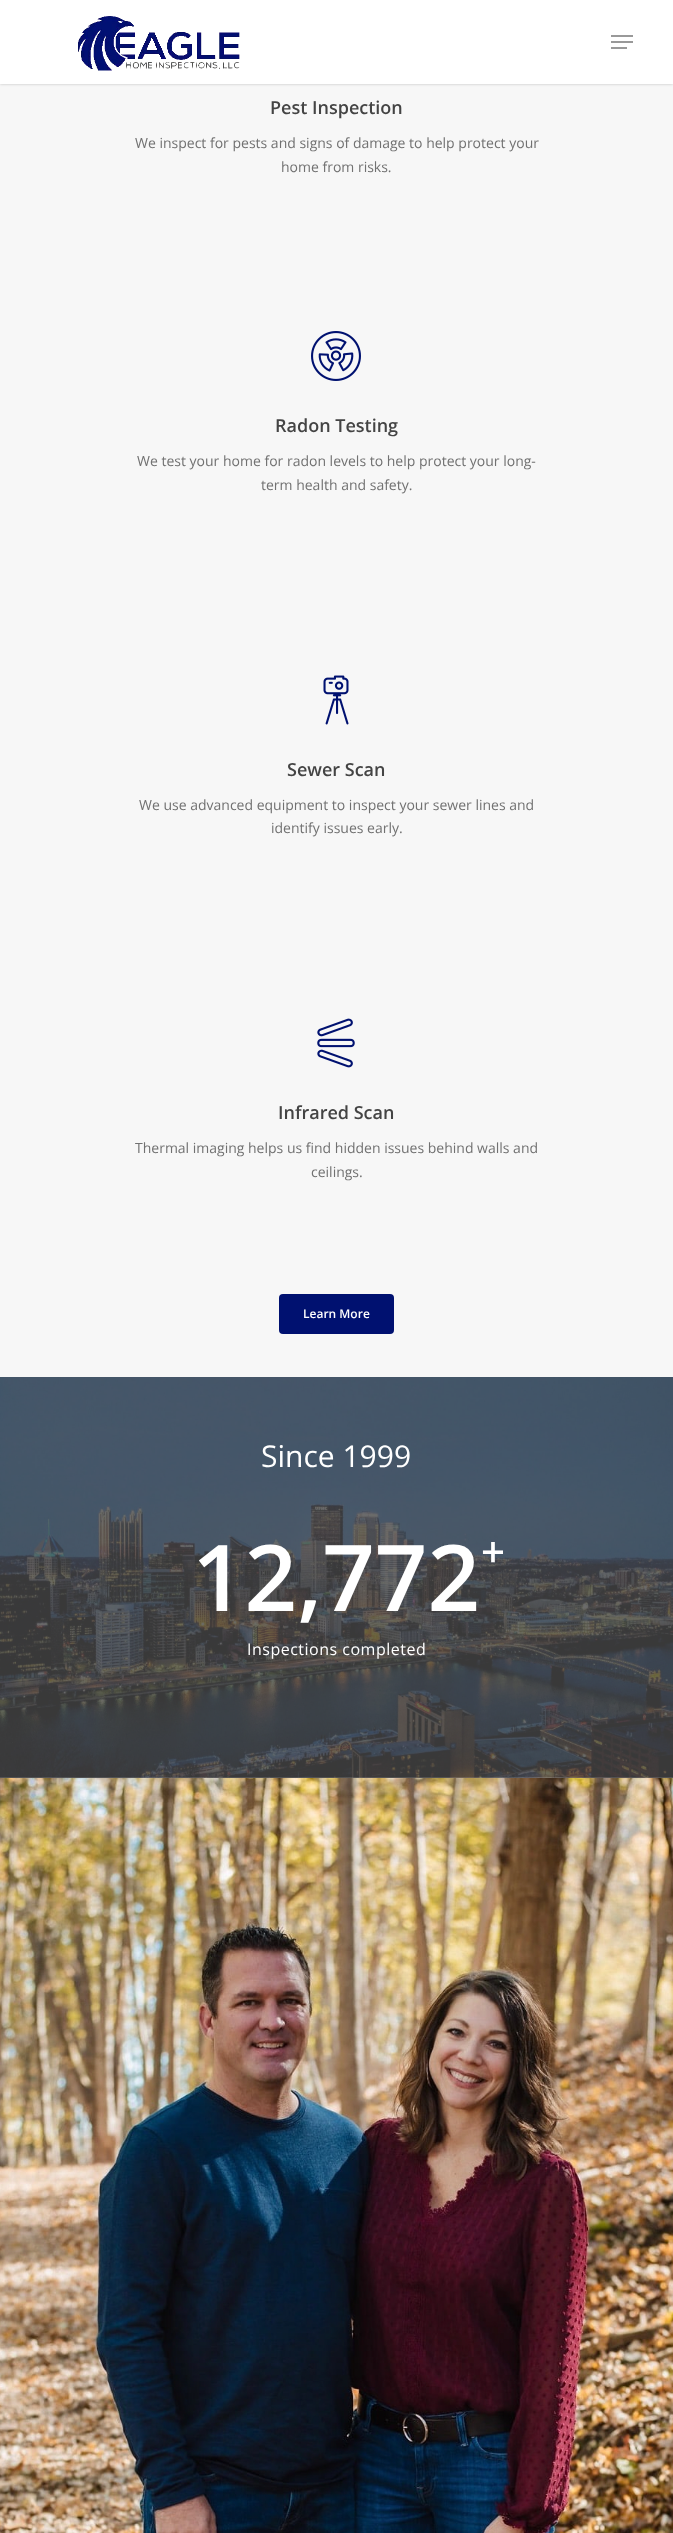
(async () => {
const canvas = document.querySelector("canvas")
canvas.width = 673
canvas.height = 2533
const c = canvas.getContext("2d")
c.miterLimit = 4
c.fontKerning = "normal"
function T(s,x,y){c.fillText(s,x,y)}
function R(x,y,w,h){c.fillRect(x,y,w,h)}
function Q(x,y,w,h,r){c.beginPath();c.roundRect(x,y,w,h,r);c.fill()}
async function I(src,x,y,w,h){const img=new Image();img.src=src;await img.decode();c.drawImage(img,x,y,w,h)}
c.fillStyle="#fff"
R(0,0,673,2533)
c.fillStyle="#f7f7f7"
R(0,84,673,171)
c.fillStyle="#00000038"
c.filter="blur(1.5px)"
c.beginPath()
c.rect(0,0,673,84)
c.fill()
c.filter="none"
c.fillStyle="#fff"
R(0,0,673,84)
await I("1.png",78,16,162,55)
c.fillStyle="#999"
R(611,35,22,2)
R(611,47,16,2)
R(611,41,22,2)
c.font="600 18px Open Sans"
c.fillStyle="#444"
T("Pest Inspection",270,114)
c.font="14px Open Sans"
c.fillStyle="#717171"
T("We inspect for pests and signs of damage to help protect your",135,148)
T("home from risks.",281,172)
c.fillStyle="#f7f7f7"
R(0,255,673,1122)
await I("2.png",311,331,50,50)
c.font="600 18px Open Sans"
c.fillStyle="#444"
T("Radon Testing",275,432)
c.font="14px Open Sans"
c.fillStyle="#717171"
T("We test your home for radon levels to help protect your long-",137,466)
T("term health and safety.",261,490)
await I("3.png",323,675,26,50)
c.font="600 18px Open Sans"
c.fillStyle="#444"
T("Sewer Scan",287,776)
c.font="14px Open Sans"
c.fillStyle="#717171"
T("We use advanced equipment to inspect your sewer lines and",139,810)
T("identify issues early.",271,833)
await I("4.png",317,1018,38,50)
c.font="600 18px Open Sans"
c.fillStyle="#444"
T("Infrared Scan",278,1119)
c.font="14px Open Sans"
c.fillStyle="#717171"
T("Thermal imaging helps us find hidden issues behind walls and",135,1153)
T("ceilings.",311,1177)
c.fillStyle="#001170"
Q(279,1294,115,40,4)
c.font="600 12px Open Sans"
c.fillStyle="#fff"
T("Learn More",303,1318)
await I("5.png",0,1377,673,401)
c.font="30px Open Sans"
T("Since 1999",261,1467)
c.font="600 92px Open Sans"
T("12,772",192,1611)
c.font="600 42px Open Sans"
T("+",481,1567)
c.letterSpacing="0.5px"
c.font="16px Open Sans"
T("Inspections completed",247,1655)
await I("6.png",0,1778,673,755)
})()
